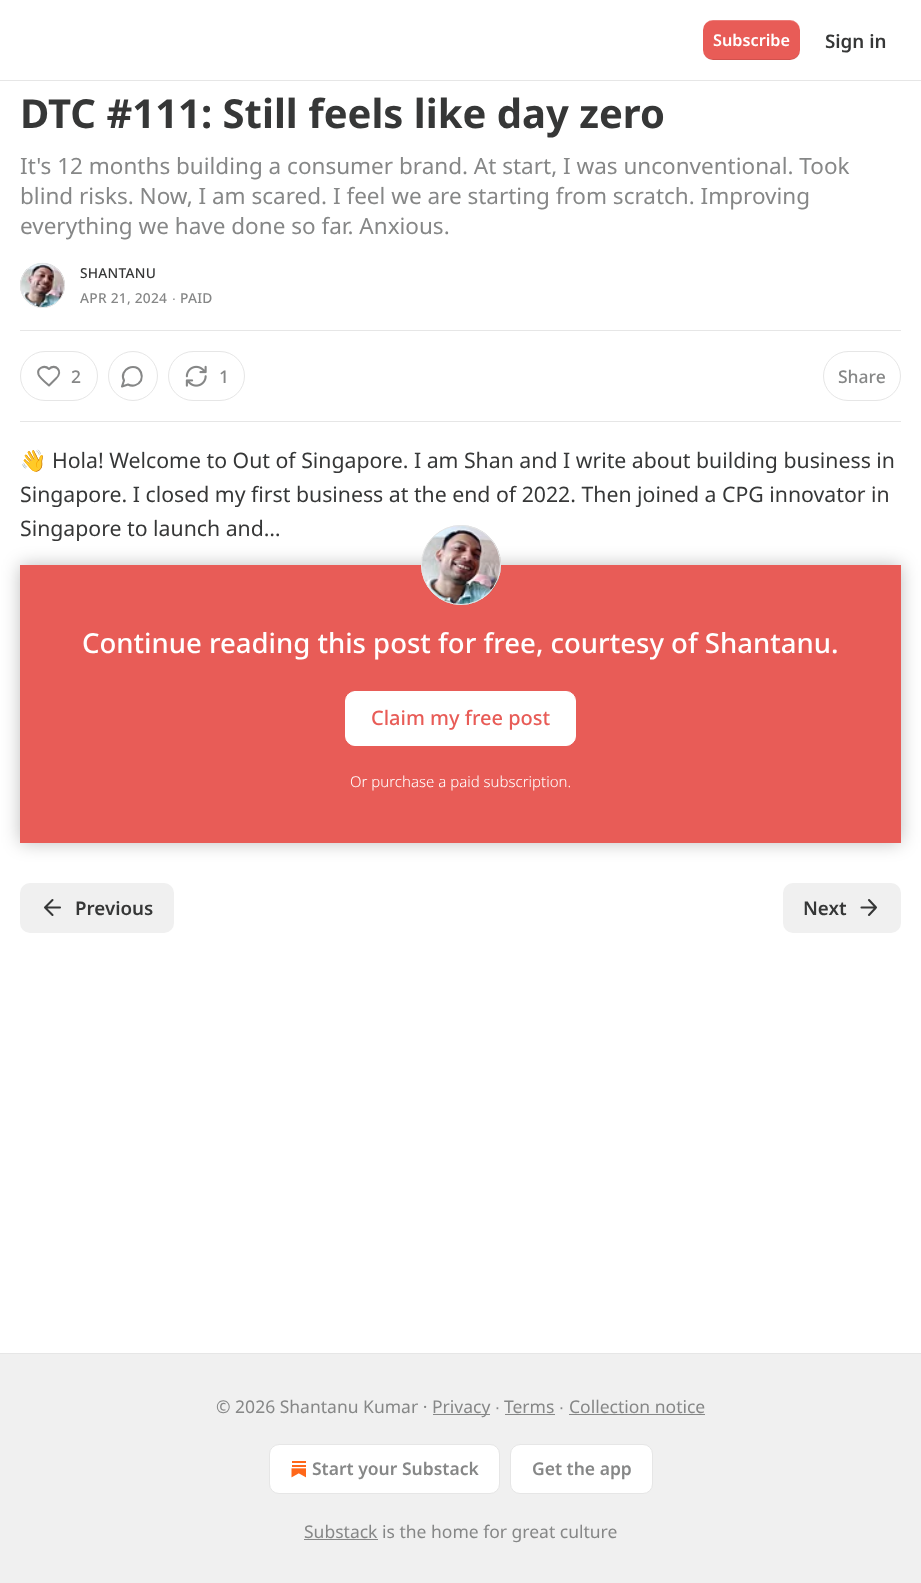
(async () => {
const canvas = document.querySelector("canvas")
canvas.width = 921
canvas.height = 1583
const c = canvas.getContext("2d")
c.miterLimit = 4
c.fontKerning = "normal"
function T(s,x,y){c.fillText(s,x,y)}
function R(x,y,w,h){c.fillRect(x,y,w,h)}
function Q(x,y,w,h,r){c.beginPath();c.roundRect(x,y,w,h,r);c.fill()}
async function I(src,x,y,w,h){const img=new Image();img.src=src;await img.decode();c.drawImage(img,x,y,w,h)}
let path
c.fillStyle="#fff"
R(0,0,921,1583)
c.fillStyle="#e6e6e6"
R(0,80,921,1)
c.fillStyle="#e85c57"
Q(703,20,97,40,10)
c.fillStyle="#0000001a"
path = new Path2D("M704 55c2 3 5 5 9 5h77c6 0 10-4 10-10v-1c0 5-4 10-10 10h-78c-3 0-6-2-8-4z")
c.fill(path)
c.fillStyle="#ffffff33"
path = new Path2D("M712 21h78c6 0 10 5 10 10v-1c0-6-4-10-10-10h-77c-4 0-7 2-9 5c2-2 5-4 8-4z")
c.fill(path)
c.font="600 16.25px Noto Sans"
c.fillStyle="#fff"
T("Subscribe",713,46)
c.font="600 18.75px Noto Sans"
c.fillStyle="#363737"
T("Sign in",825,48)
c.font="bold 40px Noto Sans"
T("DTC #111: Still feels like day zero",20,128)
c.font="22.5px Noto Sans"
c.fillStyle="#868787"
T("It's 12 months building a consumer brand. At start, I was unconventional. Took",20,174)
T("blind risks. Now, I am scared. I feel we are starting from scratch. Improving",20,204)
T("everything we have done so far. Anxious.",20,234)
c.beginPath()
c.arc(42.5,285.5,22,0,7)
c.strokeStyle="#e6e6e6"
c.stroke()
await I("1.png",20,262,45,46)
c.beginPath()
c.arc(42.5,285.5,22,0,7)
c.stroke()
c.letterSpacing="0.25px"
c.font="500 13.75px Noto Sans"
c.fillStyle="#363737"
T("SHANTANU",80,278)
c.fillStyle="#868787"
T("APR 21, 2024",80,303)
c.font="13.75px Liberation Sans"
T("∙",172,303)
c.font="500 13.75px Noto Sans"
T("PAID",180,303)
c.fillStyle="#e6e6e6"
R(20,330,881,1)
R(20,421,881,1)
c.beginPath()
c.roundRect(20.5,351.5,77,49,24.5)
c.stroke()
path = new Path2D("M56 378.5c8-7.5-1-15.5-7-9.5c-4.5-4.5-12.5-1-10.5 5.5c1 3 7.5 8.5 10.5 11z")
c.strokeStyle="#868787"
c.lineWidth=2.1
c.lineCap="round"
c.lineJoin="round"
c.stroke(path)
c.letterSpacing="0px"
c.font="500 17.5px Noto Sans"
c.fillStyle="#868787"
T("2",71,383)
c.beginPath()
c.arc(133,376,24.5,0,7)
c.strokeStyle="#e6e6e6"
c.lineWidth=1
c.stroke()
path = new Path2D("M128 384.5c5 2.5 10.5 .5 13-4c1-2.5 1-5.5 0-8c-5-11.5-22.5-3-17 8l-2 6z")
c.strokeStyle="#868787"
c.lineWidth=2.1
c.stroke(path)
c.beginPath()
c.roundRect(168.5,351.5,76,49,24.5)
c.strokeStyle="#e6e6e6"
c.lineWidth=1
c.lineJoin="miter"
c.stroke()
await I("2.png",185,365,22,22)
T("1",219,383)
c.beginPath()
c.roundRect(823.5,351.5,77,49,24.5)
c.stroke()
T("Share",838,383)
c.font="21.25px Noto Color Emoji"
c.fillStyle="#363737"
T("👋",20,468)
c.font="21.25px Noto Sans"
T("Hola! Welcome to Out of Singapore. I am Shan and I write about building business in",52,468)
T("Singapore. I closed my first business at the end of 2022. Then joined a CPG innovator in",20,502)
T("Singapore to launch and…",20,536)
c.fillStyle="#e85c57"
R(20,565,881,278)
c.fillStyle="#fff"
c.beginPath()
c.roundRect(345.5,691.5,230,54,9.5)
c.fill()
c.strokeStyle="#fff"
c.stroke()
c.save()
path = new Path2D("M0 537h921v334h-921zm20 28h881v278h-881z")
c.clip(path,"evenodd")
c.fillStyle="#00000040"
c.filter="blur(9px)"
c.beginPath()
c.rect(20,565,881,278)
c.fill()
c.filter="none"
c.restore()
c.beginPath()
c.arc(461,565,39.5,0,7)
c.strokeStyle="#e6e6e6"
c.stroke()
await I("3.png",421,525,80,80)
c.beginPath()
c.arc(461,565,39.5,0,7)
c.stroke()
c.font="500 27.5px Noto Sans"
T("Continue reading this post for free, courtesy of Shantanu.",82,653)
c.font="500 20px Noto Sans"
c.fillStyle="#e85c57"
T("Claim my free post",371,725)
c.font="300 15px Noto Sans"
c.fillStyle="#fff"
T("Or purchase a paid subscription.",350,787)
c.fillStyle="#f0f0f0"
Q(20,883,154,50,10)
path = new Path2D("M52.5 915l-7.5-7.5l7.5-7.5m7.5 7.5h-15")
c.strokeStyle="#363737"
c.lineWidth=2.1
c.lineJoin="round"
c.stroke(path)
c.font="600 18.75px Noto Sans"
c.fillStyle="#363737"
T("Previous",75,915)
c.fillStyle="#f0f0f0"
Q(783,883,118,50,10)
c.fillStyle="#363737"
T("Next",803,915)
path = new Path2D("M861.5 907.5h14.5m-7-7.5l7 7.5l-7 7.5")
c.stroke(path)
c.fillStyle="#f0f0f0"
R(0,1354,921,229)
c.fillStyle="#e6e6e6"
R(0,1353,921,1)
c.font="17.5px Noto Sans"
c.fillStyle="#868787"
T("© 2026 Shantanu Kumar ·",216,1413)
R(433,1414,57,1)
T("Privacy",432,1413)
c.font="17.5px Liberation Sans"
T("∙",495,1413)
c.font="17.5px Noto Sans"
T("Terms",504,1413)
R(505,1414,50,1)
c.font="17.5px Liberation Sans"
T("∙",559,1413)
c.font="17.5px Noto Sans"
T("Collection notice",569,1413)
R(569,1414,136,1)
c.fillStyle="#fff"
c.beginPath()
c.roundRect(269.5,1444.5,230,49,9.5)
c.fill()
c.strokeStyle="#e6e6e6"
c.lineWidth=1
c.lineJoin="miter"
c.stroke()
await I("4.png",291,1461,15,17)
c.font="600 17.5px Noto Sans"
c.fillStyle="#868787"
T("Start your Substack",312,1475)
c.fillStyle="#fff"
c.beginPath()
c.roundRect(510.5,1444.5,142,49,9.5)
c.fill()
c.stroke()
c.fillStyle="#868787"
T("Get the app",532,1475)
R(304,1539,74,1)
c.font="17.5px Noto Sans"
T("Substack is the home for great culture",304,1538)
})()
